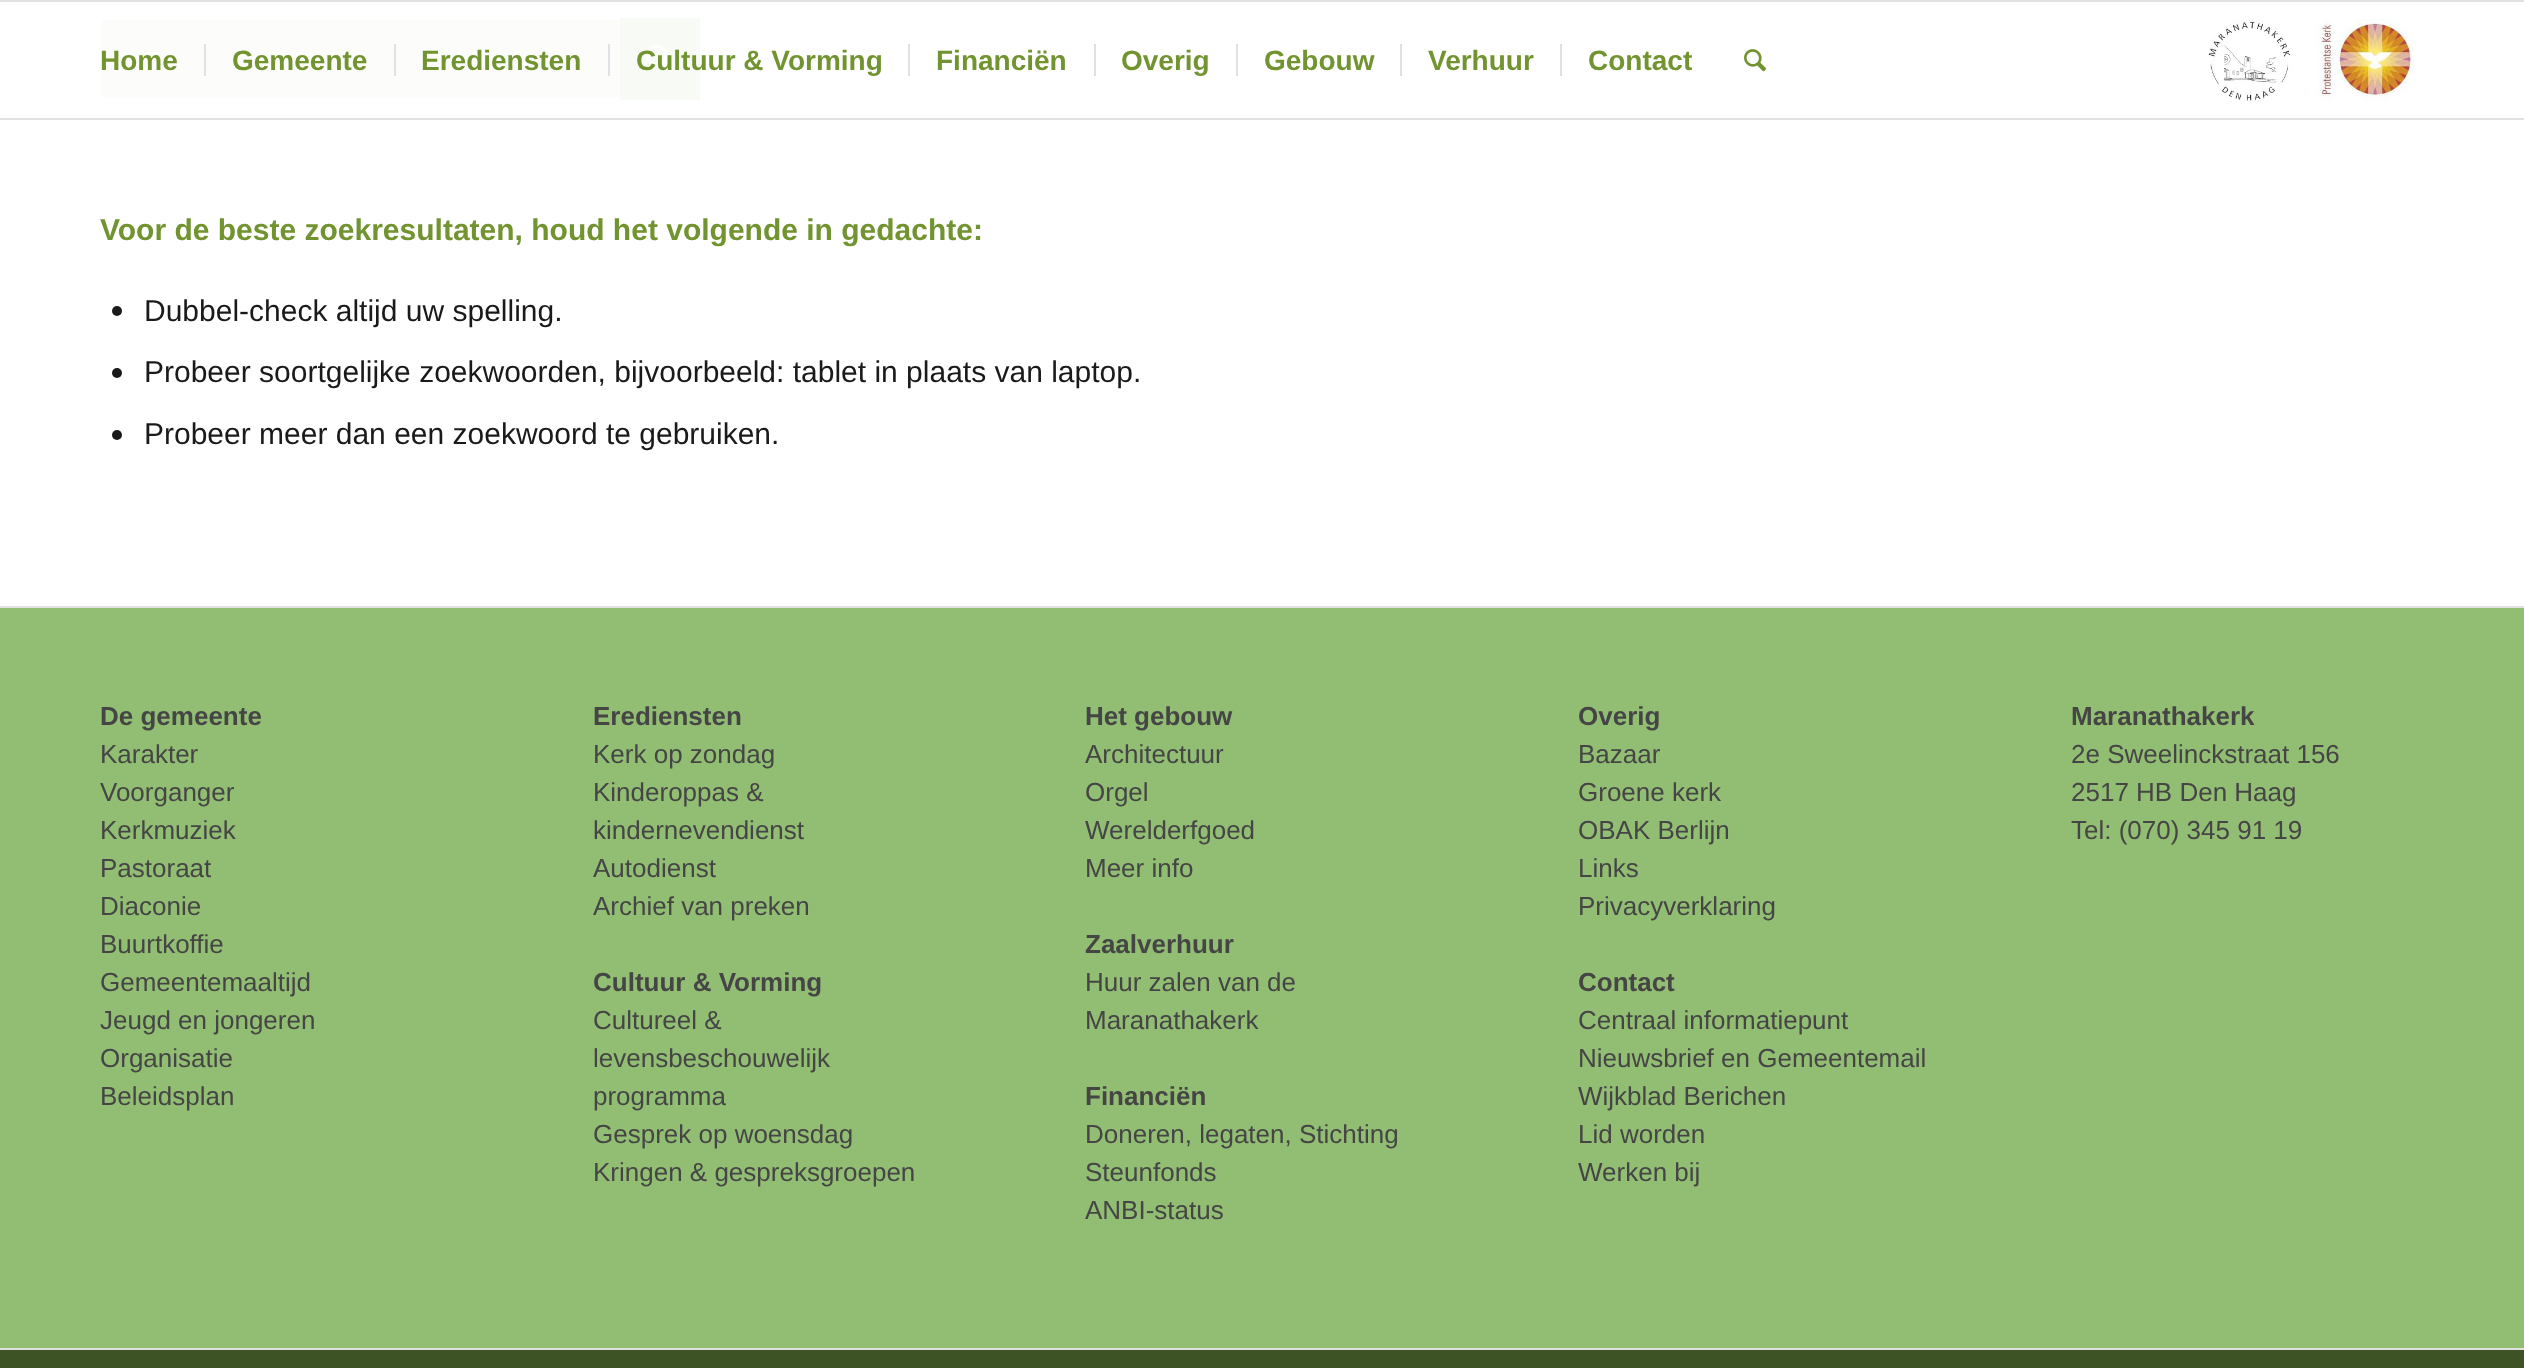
(async () => {
const canvas = document.querySelector("canvas")
canvas.width = 2524
canvas.height = 1368
const c = canvas.getContext("2d")
c.miterLimit = 4
c.fontKerning = "normal"
function T(s,x,y){c.fillText(s,x,y)}
function R(x,y,w,h){c.fillRect(x,y,w,h)}
async function I(src,x,y,w,h){const img=new Image();img.src=src;await img.decode();c.drawImage(img,x,y,w,h)}
c.fillStyle="#fff"
R(0,0,2524,1368)
c.fillStyle="#e1e1e1"
R(0,0,2524,2)
R(0,118,2524,2)
c.fillStyle="#fcfdfb"
R(102,20,518,78)
c.font="bold 28px Liberation Sans"
c.fillStyle="#719430"
T("Home",100,70)
T("Gemeente",232,70)
c.fillStyle="#e1e1e1"
R(204,44,2,32)
c.fillStyle="#719430"
T("Erediensten",421,70)
c.fillStyle="#e1e1e1"
R(394,44,2,32)
c.fillStyle="#f8faf5"
R(620,18,80,82)
await I("3.png",646,44,27,28)
c.fillStyle="#719430"
T("Cultuur & Vorming",636,70)
c.fillStyle="#e1e1e1"
R(608,44,2,32)
c.fillStyle="#719430"
T("Financiën",936,70)
c.fillStyle="#e1e1e1"
R(908,44,2,32)
c.fillStyle="#719430"
T("Overig",1121,70)
c.fillStyle="#e1e1e1"
R(1094,44,2,32)
c.fillStyle="#719430"
T("Gebouw",1264,70)
c.fillStyle="#e1e1e1"
R(1236,44,2,32)
c.fillStyle="#719430"
T("Verhuur",1428,70)
c.fillStyle="#e1e1e1"
R(1400,44,2,32)
c.fillStyle="#719430"
T("Contact",1588,70)
c.fillStyle="#e1e1e1"
R(1560,44,2,32)
await I("1.png",1744,49,23,23)
await I("2.png",2208,19,207,82)
c.font="bold 30px Liberation Sans"
c.fillStyle="#719430"
T("Voor de beste zoekresultaten, houd het volgende in gedachte:",100,240)
c.fillStyle="#1a1a1a"
c.beginPath()
c.arc(117,311,5,0,7)
c.fill()
c.font="30px Liberation Sans"
T("Dubbel-check altijd uw spelling.",144,321)
c.beginPath()
c.arc(117,373,5,0,7)
c.fill()
T("Probeer soortgelijke zoekwoorden, bijvoorbeeld: tablet in plaats van laptop.",144,382)
c.beginPath()
c.arc(117,435,5,0,7)
c.fill()
T("Probeer meer dan een zoekwoord te gebruiken.",144,444)
c.fillStyle="#92be73"
R(0,608,2524,740)
c.fillStyle="#e1e1e1"
R(0,606,2524,2)
c.font="bold 26px Liberation Sans"
c.fillStyle="#454545"
T("De gemeente",100,725)
c.font="26px Liberation Sans"
T("Karakter",100,763)
T("Voorganger",100,801)
T("Kerkmuziek",100,839)
T("Pastoraat",100,877)
T("Diaconie",100,915)
T("Buurtkoffie",100,953)
T("Gemeentemaaltijd",100,991)
T("Jeugd en jongeren",100,1029)
T("Organisatie",100,1067)
T("Beleidsplan",100,1105)
c.font="bold 26px Liberation Sans"
T("Erediensten",593,725)
c.font="26px Liberation Sans"
T("Kerk op zondag",593,763)
T("Kinderoppas &",593,801)
T("kindernevendienst",593,839)
T("Autodienst",593,877)
T("Archief van preken",593,915)
c.font="bold 26px Liberation Sans"
T("Cultuur & Vorming",593,991)
c.font="26px Liberation Sans"
T("Cultureel &",593,1029)
T("levensbeschouwelijk",593,1067)
T("programma",593,1105)
T("Gesprek op woensdag",593,1143)
T("Kringen & gespreksgroepen",593,1181)
c.font="bold 26px Liberation Sans"
T("Het gebouw",1085,725)
c.font="26px Liberation Sans"
T("Architectuur",1085,763)
T("Orgel",1085,801)
T("Werelderfgoed",1085,839)
T("Meer info",1085,877)
c.font="bold 26px Liberation Sans"
T("Zaalverhuur",1085,953)
c.font="26px Liberation Sans"
T("Huur zalen van de",1085,991)
T("Maranathakerk",1085,1029)
c.font="bold 26px Liberation Sans"
T("Financiën",1085,1105)
c.font="26px Liberation Sans"
T("Doneren, legaten, Stichting",1085,1143)
T("Steunfonds",1085,1181)
T("ANBI-status",1085,1219)
c.font="bold 26px Liberation Sans"
T("Overig",1578,725)
c.font="26px Liberation Sans"
T("Bazaar",1578,763)
T("Groene kerk",1578,801)
T("OBAK Berlijn",1578,839)
T("Links",1578,877)
T("Privacyverklaring",1578,915)
c.font="bold 26px Liberation Sans"
T("Contact",1578,991)
c.font="26px Liberation Sans"
T("Centraal informatiepunt",1578,1029)
T("Nieuwsbrief en Gemeentemail",1578,1067)
T("Wijkblad Berichen",1578,1105)
T("Lid worden",1578,1143)
T("Werken bij",1578,1181)
c.font="bold 26px Liberation Sans"
T("Maranathakerk",2071,725)
c.font="26px Liberation Sans"
T("2e Sweelinckstraat 156",2071,763)
T("2517 HB Den Haag",2071,801)
T("Tel: (070) 345 91 19",2071,839)
c.fillStyle="#3d5326"
R(0,1350,2524,18)
c.fillStyle="#e1e1e1"
R(0,1348,2524,2)
})()
